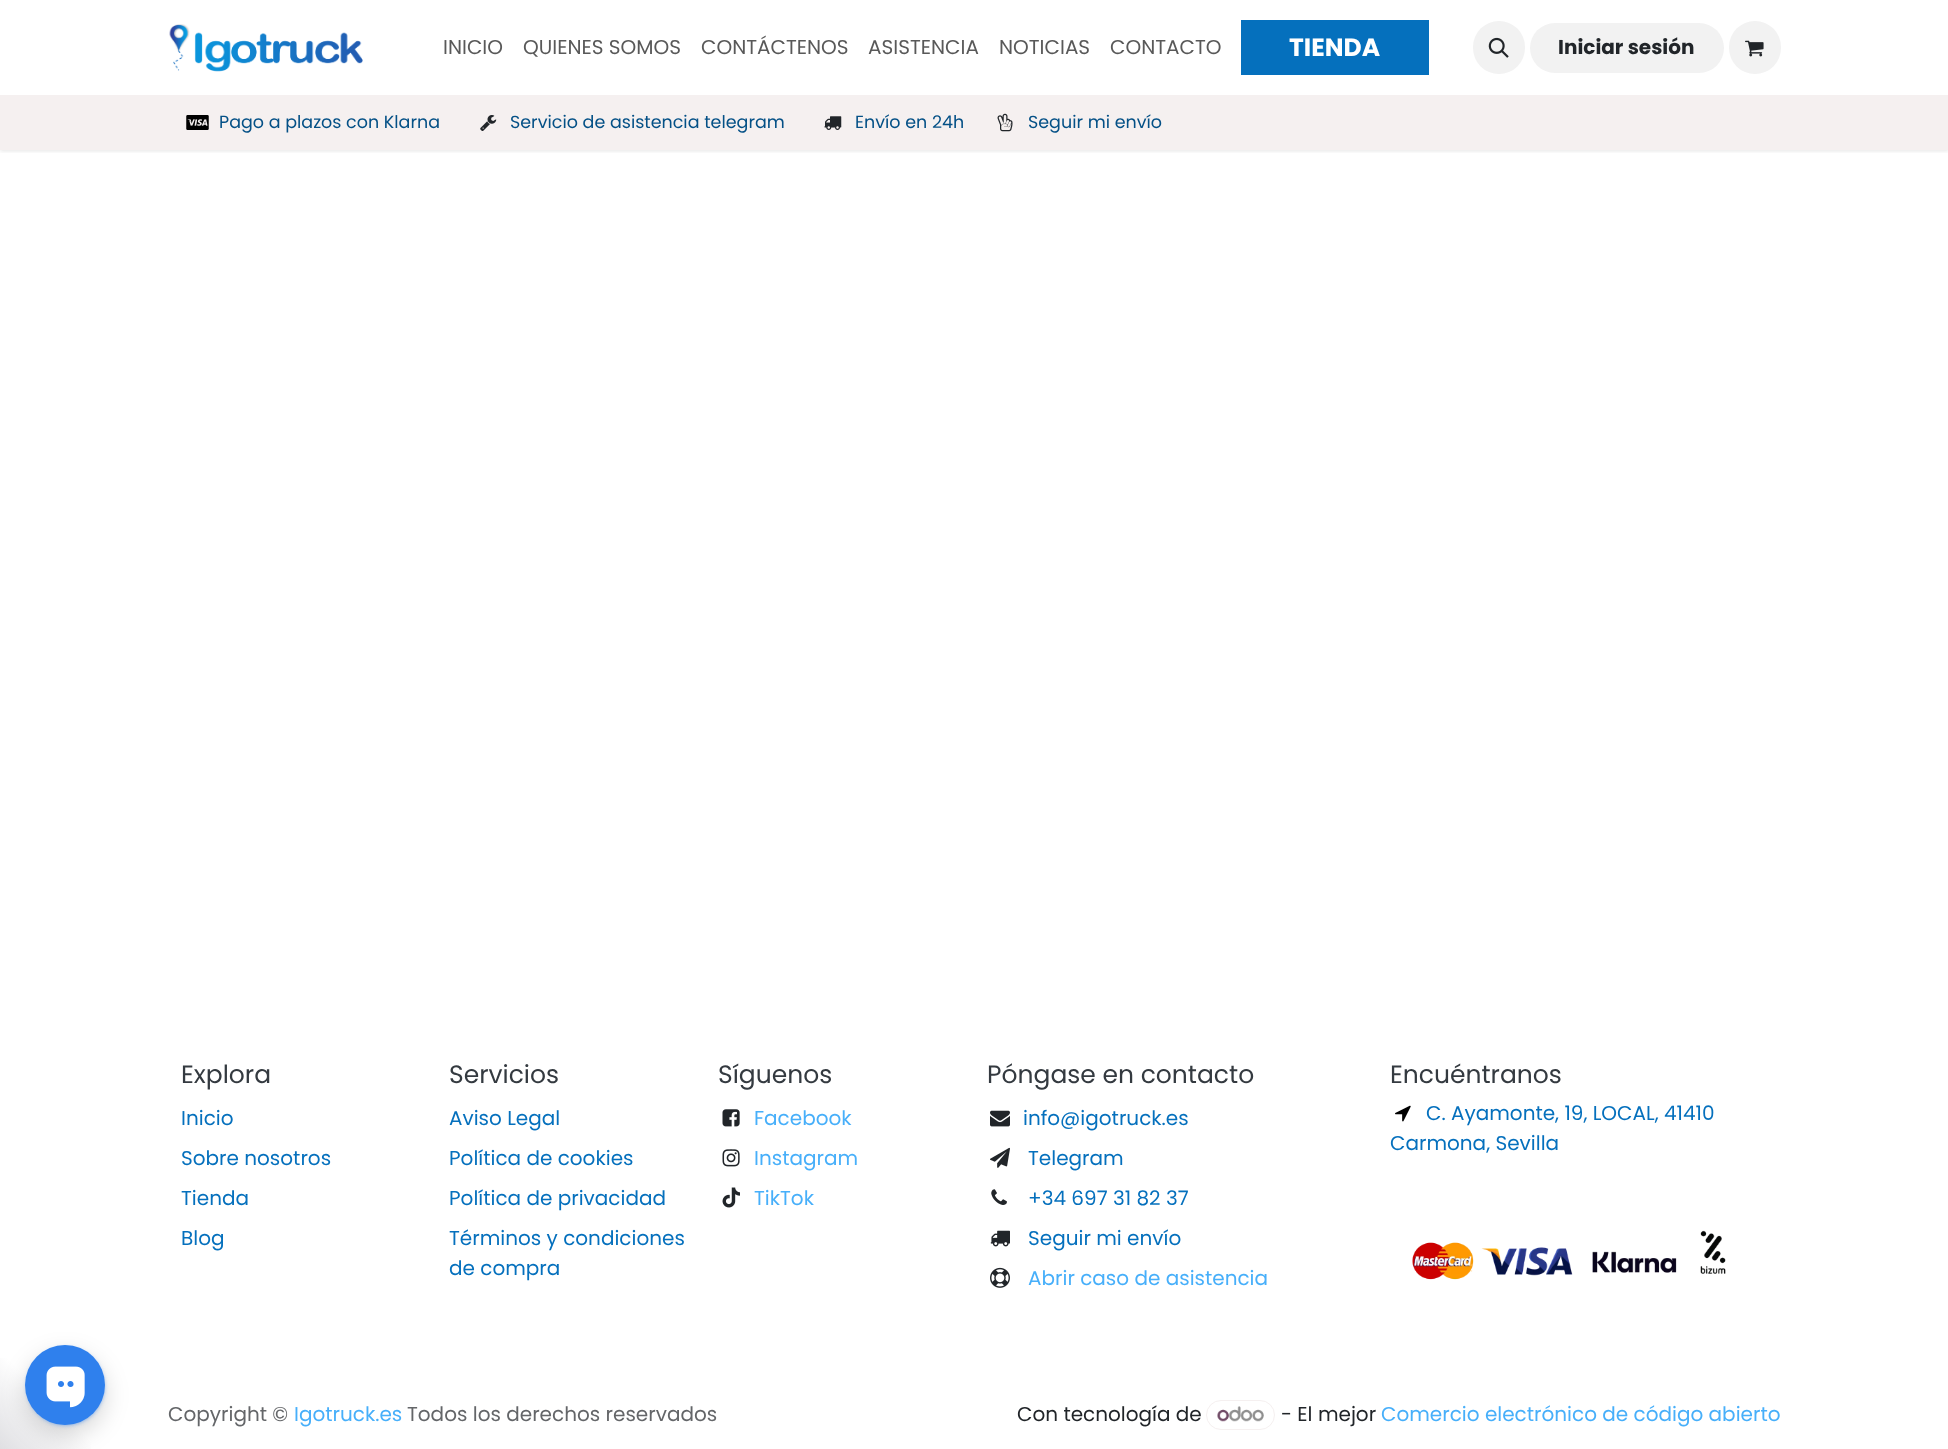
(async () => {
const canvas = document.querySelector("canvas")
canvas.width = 1948
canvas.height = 1449
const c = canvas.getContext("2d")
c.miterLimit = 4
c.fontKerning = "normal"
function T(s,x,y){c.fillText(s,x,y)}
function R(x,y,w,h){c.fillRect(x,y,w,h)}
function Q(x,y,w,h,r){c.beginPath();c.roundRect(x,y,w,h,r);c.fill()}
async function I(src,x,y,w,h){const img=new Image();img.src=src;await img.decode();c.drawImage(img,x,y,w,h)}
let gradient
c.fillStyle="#fff"
R(0,0,1948,1449)
gradient = c.createLinearGradient(125,1325,-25,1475)
gradient.addColorStop(.5,"#fff")
gradient.addColorStop(1,"#cfcfd4")
c.fillStyle = gradient
R(0,1358,91,91)
c.fillStyle="#00000029"
c.filter="blur(12.5px)"
c.beginPath()
c.roundRect(25,1355,80,80,40)
c.fill()
c.filter="none"
c.fillStyle="#2f80ed"
c.filter="blur(2.5px)"
c.beginPath()
c.roundRect(28,1349,75,75,37.5)
c.fill()
c.filter="none"
c.beginPath()
c.arc(65,1385,40,0,7)
c.fill()
await I("1.png",46,1366,39,42)
c.save()
c.beginPath()
c.rect(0,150,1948,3)
c.clip()
c.fillStyle="#0000001a"
c.filter="blur(2px)"
c.beginPath()
c.rect(0,1,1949,150)
c.fill()
c.filter="none"
c.restore()
await I("2.png",169,24,194,48)
c.font="20px Poppins"
c.fillStyle="#595959"
T("INICIO",443,54)
T("QUIENES SOMOS",523,54)
T("CONTÁCTENOS",701,54)
T("ASISTENCIA",868,54)
T("NOTICIAS",999,54)
T("CONTACTO",1110,54)
c.fillStyle="#0570bd"
R(1241,20,188,55)
c.font="bold 25px Poppins"
c.fillStyle="#fff"
T("TIENDA",1289,56)
c.fillStyle="#f2f2f2"
Q(1473,21,52,53,26)
await I("3.png",1488,37,21,21)
Q(1530,23,194,50,25)
c.font="bold 20px Poppins"
c.fillStyle="#212529"
T("Iniciar sesión",1558,54)
c.fillStyle="#f2f2f2"
Q(1729,21,52,53,26)
await I("4.png",1745,40,19,17)
c.fillStyle="#f5f0f0"
R(0,95,1948,55)
await I("5.png",186,115,23,15)
c.font="17.5px Poppins"
c.fillStyle="#045086"
T("Pago a plazos con Klarna",219,128)
await I("6.png",480,115,17,16)
T("Servicio de asistencia telegram",510,128)
await I("7.png",824,116,18,14)
T("Envío en 24h",855,128)
await I("8.png",997,113,16,19)
T("Seguir mi envío",1028,128)
c.font="25px Poppins"
c.fillStyle="#343a40"
T("Explora",181,1083)
c.font="20px Poppins"
c.fillStyle="#0570bd"
T("Inicio",181,1125)
T("Sobre nosotros",181,1165)
T("Tienda",181,1205)
T("Blog",181,1245)
c.font="25px Poppins"
c.fillStyle="#343a40"
T("Servicios",449,1083)
c.font="20px Poppins"
c.fillStyle="#0570bd"
T("Aviso Legal",449,1125)
T("Política de cookies",449,1165)
T("Política de privacidad",449,1205)
T("Términos y condiciones",449,1245)
T("de compra",449,1275)
c.font="25px Poppins"
c.fillStyle="#343a40"
T("Síguenos",718,1083)
await I("9.png",722,1109,18,18)
c.font="20px Poppins"
c.fillStyle="#47affa"
T("Facebook",754,1125)
await I("10.png",722,1149,18,18)
T("Instagram",754,1165)
await I("11.png",722,1187,18,21)
T("TikTok",754,1205)
c.font="25px Poppins"
c.fillStyle="#343a40"
T("Póngase en contacto",987,1083)
await I("12.png",990,1110,20,17)
c.font="20px Poppins"
c.fillStyle="#0570bd"
T("info@igotruck.es",1023,1125)
await I("13.png",990,1147,20,21)
T("Telegram",1028,1165)
await I("14.png",991,1189,16,16)
T("+34 697 31 82 37",1028,1205)
await I("15.png",990,1230,20,17)
T("Seguir mi envío",1028,1245)
await I("16.png",990,1267,20,21)
c.fillStyle="#47affa"
T("Abrir caso de asistencia",1028,1285)
c.font="25px Poppins"
c.fillStyle="#343a40"
T("Encuéntranos",1390,1083)
await I("17.png",1395,1105,16,17)
c.font="20px Poppins"
c.fillStyle="#0570bd"
T("C. Ayamonte, 19, LOCAL, 41410",1426,1120)
T("Carmona, Sevilla",1390,1150)
await I("18.png",1412,1230,314,50)
c.fillStyle="#646669"
T("Copyright ©",168,1421)
c.fillStyle="#47affa"
T("Igotruck.es",294,1421)
c.fillStyle="#646669"
T("Todos los derechos reservados",407,1421)
c.fillStyle="#212529"
T("Con tecnología de",1017,1421)
c.beginPath()
c.roundRect(1206.5,1400.5,68,29,14.5)
c.strokeStyle="#f5f0f0"
c.stroke()
await I("19.png",1217,1406,47,16)
T("- El mejor",1281,1421)
c.fillStyle="#47affa"
T("Comercio electrónico de código abierto",1381,1421)
})()
